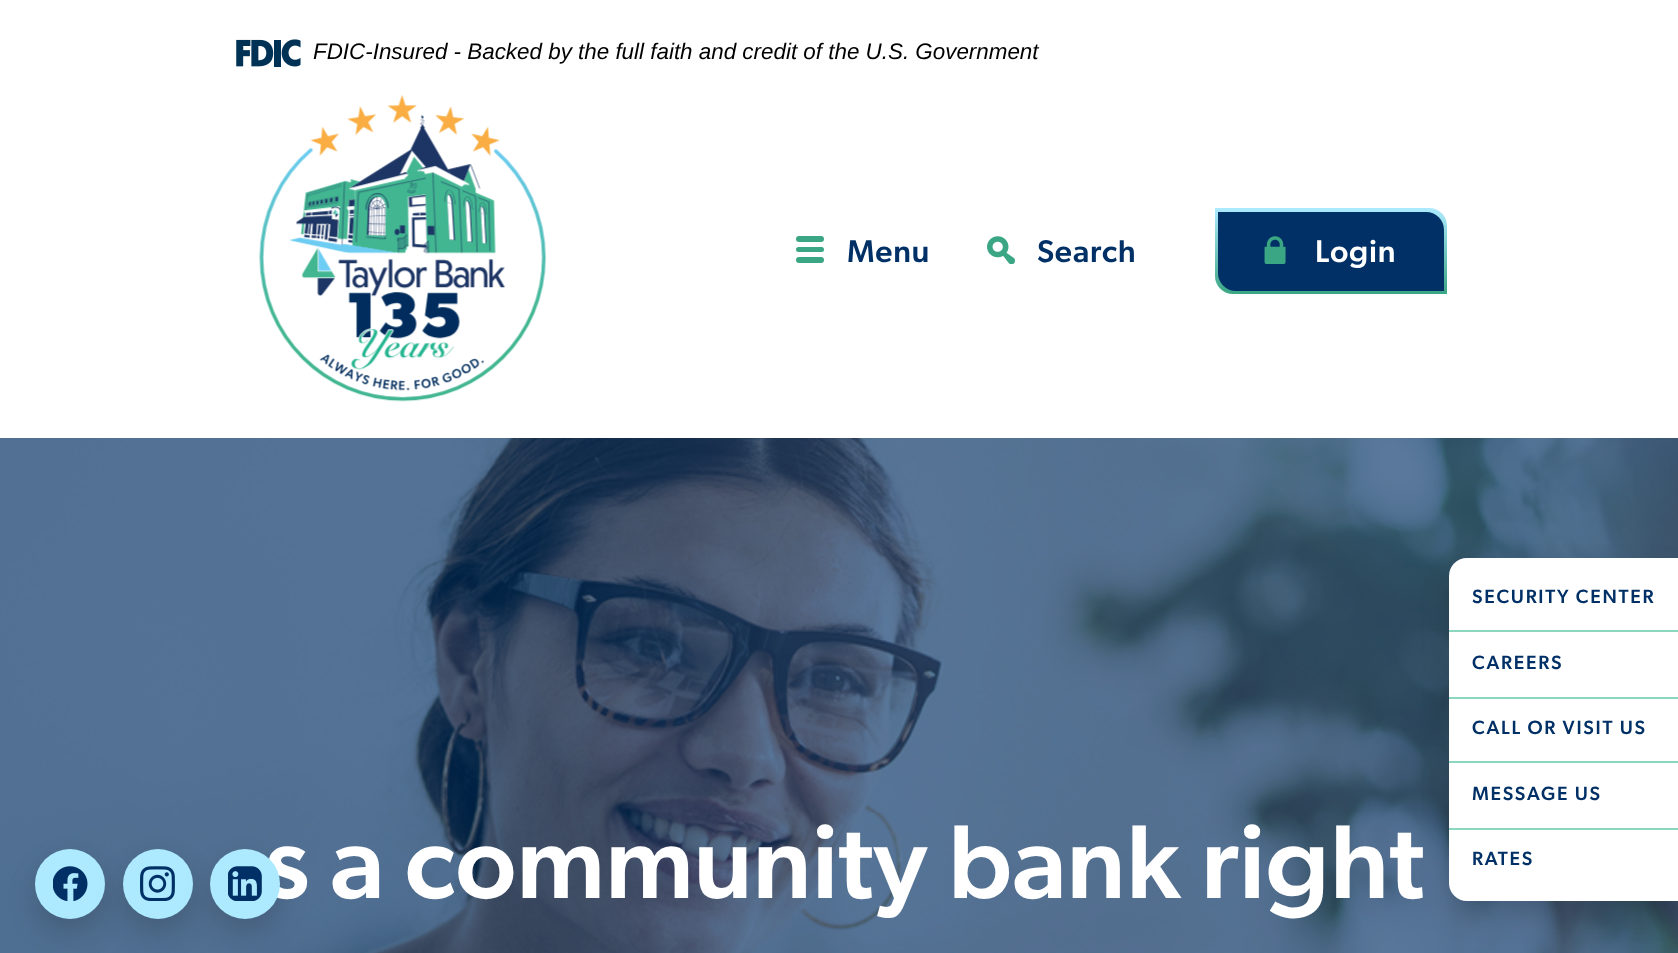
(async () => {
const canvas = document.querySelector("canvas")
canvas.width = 1678
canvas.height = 953
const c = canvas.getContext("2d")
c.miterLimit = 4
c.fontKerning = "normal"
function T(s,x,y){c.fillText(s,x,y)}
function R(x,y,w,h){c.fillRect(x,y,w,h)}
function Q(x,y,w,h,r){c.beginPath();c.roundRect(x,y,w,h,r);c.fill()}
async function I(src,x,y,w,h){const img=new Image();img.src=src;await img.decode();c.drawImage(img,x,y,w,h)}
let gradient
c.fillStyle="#fff"
R(0,0,1678,953)
await I("1.png",236,39,65,28)
c.font="italic 22.4px Liberation Sans"
c.fillStyle="#000"
T("FDIC-Insured - Backed by the full faith and credit of the U.S. Government",313,59)
await I("2.png",259,95,288,307)
c.fillStyle="#3aa684"
Q(796,236,28,6,3)
Q(796,247,28,5,2.5)
c.letterSpacing="0.75px"
c.font="500 31.5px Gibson"
c.fillStyle="#003066"
T("Menu",847,262)
c.fillStyle="#3aa684"
Q(796,257,28,6,3)
await I("3.png",987,236,28,28)
c.fillStyle="#003066"
T("Search",1037,262)
gradient = c.createLinearGradient(1331,294,1331,208)
gradient.addColorStop(0,"#3aa684")
gradient.addColorStop(1,"#adeaff")
c.fillStyle = gradient
c.beginPath()
c.roundRect(1215,208,232,86,[0,18,0,18])
c.fill()
c.fillStyle="#003066"
c.beginPath()
c.roundRect(1218,212,226,79,[0,18,0,18])
c.fill()
await I("4.png",1264,236,22,28)
c.fillStyle="#fff"
T("Login",1315,262)
await I("8.png",0,438,1678,515)
c.fillStyle="#00000026"
c.filter="blur(14px)"
c.beginPath()
c.roundRect(1449,572,229,343,18)
c.fill()
c.filter="none"
c.fillStyle="#fff"
c.beginPath()
c.roundRect(1449,558,229,343,[18,0,0,18])
c.fill()
c.fillStyle="#8ad6bf"
R(1449,630,229,2)
c.letterSpacing="1.75px"
c.font="500 19.25px Gibson"
c.fillStyle="#003066"
T("SECURITY CENTER",1472,603)
c.fillStyle="#8ad6bf"
R(1449,697,229,2)
c.fillStyle="#003066"
T("CAREERS",1472,669)
c.fillStyle="#8ad6bf"
R(1449,761,229,2)
c.fillStyle="#003066"
T("CALL OR VISIT US",1472,734)
c.fillStyle="#8ad6bf"
R(1449,828,229,2)
c.fillStyle="#003066"
T("MESSAGE US",1472,800)
T("RATES",1472,865)
c.fillStyle="#00000026"
c.filter="blur(14px)"
c.beginPath()
c.roundRect(35,863,70,70,35)
c.fill()
c.filter="none"
c.fillStyle="#adeaff"
c.beginPath()
c.arc(70,884,35,0,7)
c.fill()
c.fillStyle="#00000026"
c.filter="blur(14px)"
c.beginPath()
c.roundRect(123,863,70,70,35)
c.fill()
c.filter="none"
await I("5.png",53,866,35,35)
c.fillStyle="#adeaff"
c.beginPath()
c.arc(158,884,35,0,7)
c.fill()
c.fillStyle="#00000026"
c.filter="blur(14px)"
c.beginPath()
c.roundRect(210,863,70,70,35)
c.fill()
c.filter="none"
await I("6.png",140,866,35,35)
c.letterSpacing="0px"
c.font="500 105px Gibson"
c.fillStyle="#fff"
T("s a community bank right",264,898)
c.fillStyle="#adeaff"
c.beginPath()
c.arc(245,884,35,0,7)
c.fill()
await I("7.png",228,866,34,35)
})()
